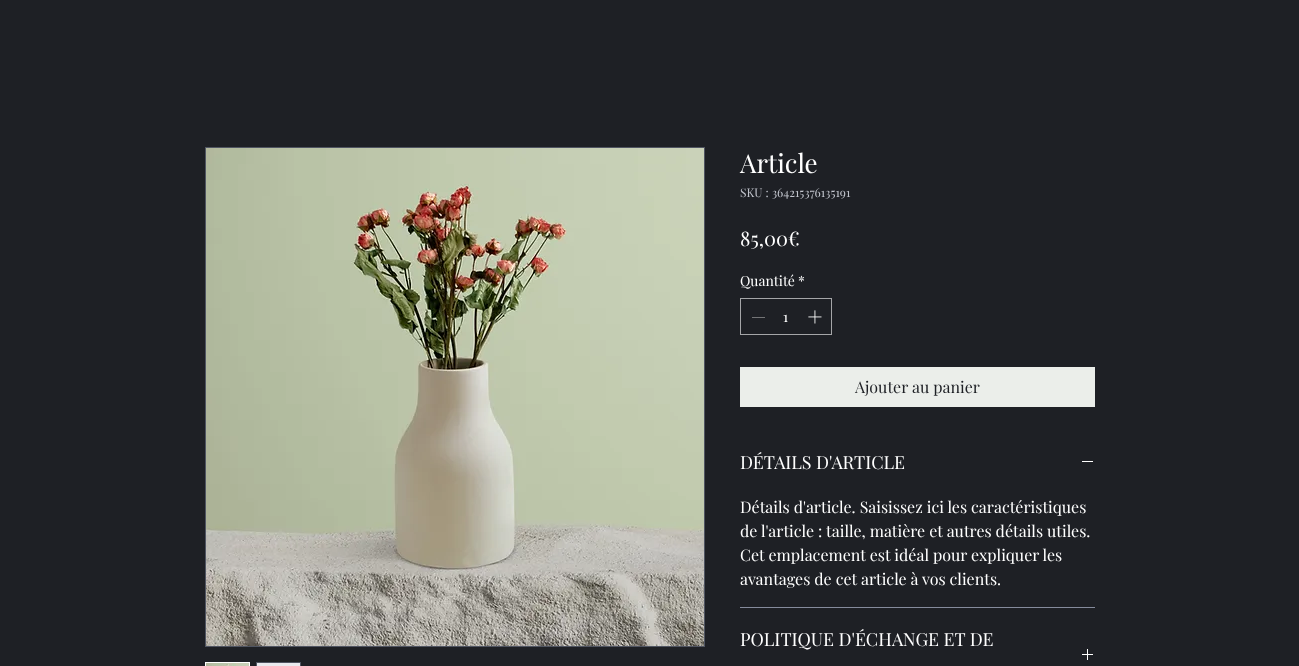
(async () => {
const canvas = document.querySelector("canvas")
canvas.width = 1299
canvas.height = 666
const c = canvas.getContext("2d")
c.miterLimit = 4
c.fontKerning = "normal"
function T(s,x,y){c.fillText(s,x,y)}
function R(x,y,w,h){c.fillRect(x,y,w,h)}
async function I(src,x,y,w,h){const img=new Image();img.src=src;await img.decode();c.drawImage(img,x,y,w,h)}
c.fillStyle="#1e2025"
R(0,0,1299,666)
c.strokeStyle="#505562"
c.strokeRect(205.5,147.5,499,499)
await I("1.png",206,148,498,498)
c.strokeStyle="#fff"
c.strokeRect(205.5,662.5,44,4)
await I("2.png",206,663,43,3)
c.strokeStyle="#505562"
c.strokeRect(256.5,662.5,44,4)
c.fillStyle="#eaebef"
R(257,663,43,3)
c.font="26px Playfair Display"
c.fillStyle="#fff"
T("Article",740,173)
c.font="12px Playfair Display"
c.fillStyle="#c2c5cd"
T("SKU : 364215376135191",740,197)
c.font="20px Playfair Display"
c.fillStyle="#fff"
T("85,00€",740,246)
c.font="14px Playfair Display"
T("Quantité",740,286)
T("*",798,286)
c.strokeStyle="#a5a6a8"
c.strokeRect(740.5,298.5,91,36)
c.fillStyle="#737476"
R(752,317,13,1)
c.fillStyle="#fff"
T("1",783,322)
await I("3.png",808,310,14,14)
c.fillStyle="#ebeeea"
R(740,367,355,40)
c.font="16px Playfair Display"
c.fillStyle="#1e2025"
T("Ajouter au panier",855,393)
c.fillStyle="#858b9c"
R(740,607,355,1)
c.font="18px Playfair Display"
c.fillStyle="#fff"
T("DÉTAILS D'ARTICLE",740,469)
R(1082,461,11,1)
c.font="16px Playfair Display"
T("Détails d'article. Saisissez ici les caractéristiques",740,513)
T("de l'article : taille, matière et autres détails utiles.",740,537)
T("Cet emplacement est idéal pour expliquer les",740,561)
T("avantages de cet article à vos clients.",740,585)
c.font="18px Playfair Display"
T("POLITIQUE D'ÉCHANGE ET DE",740,646)
await I("4.png",1082,649,11,11)
})()
